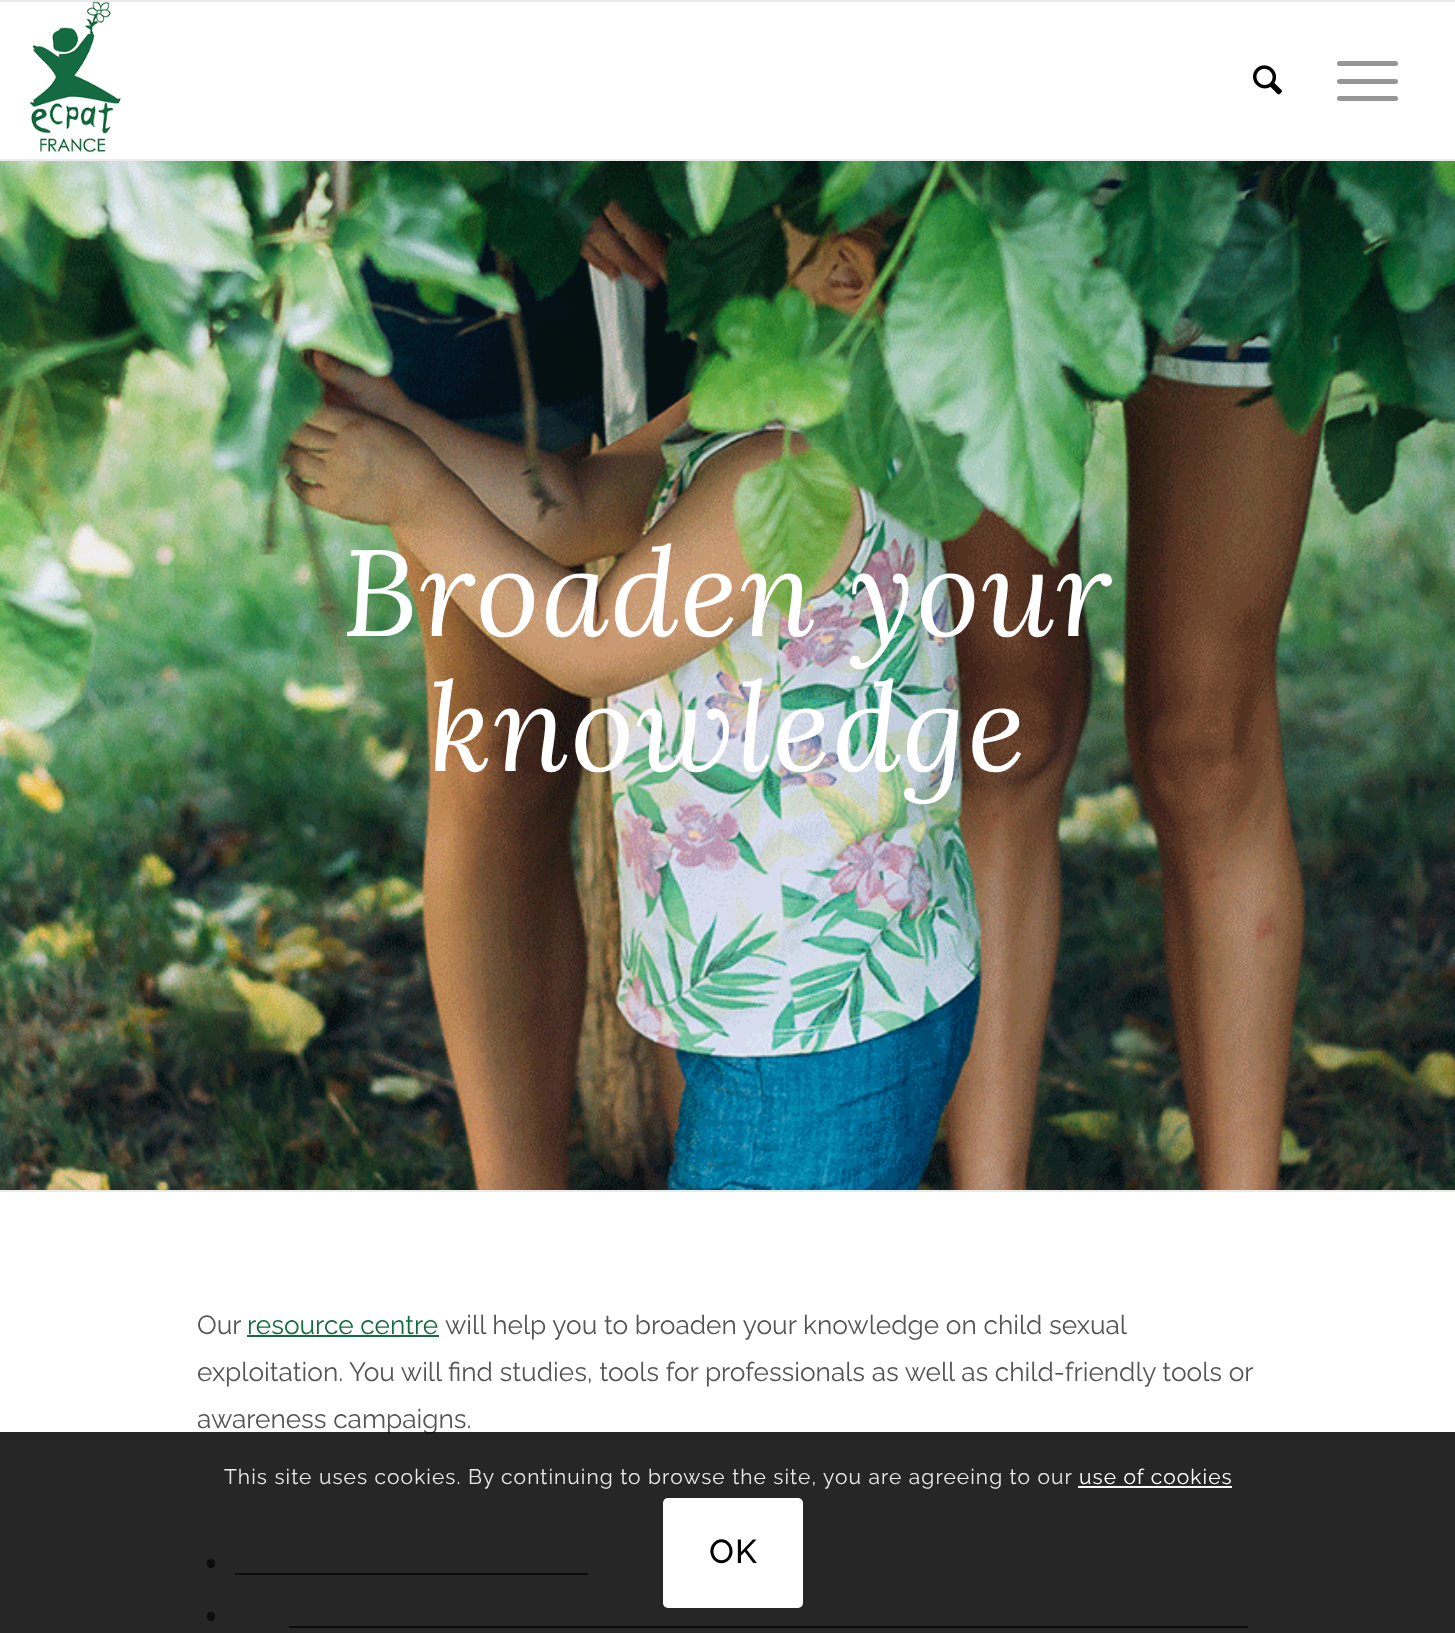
(async () => {
const canvas = document.querySelector("canvas")
canvas.width = 1455
canvas.height = 1633
const c = canvas.getContext("2d")
c.miterLimit = 4
c.fontKerning = "normal"
function T(s,x,y){c.fillText(s,x,y)}
function R(x,y,w,h){c.fillRect(x,y,w,h)}
function Q(x,y,w,h,r){c.beginPath();c.roundRect(x,y,w,h,r);c.fill()}
async function I(src,x,y,w,h){const img=new Image();img.src=src;await img.decode();c.drawImage(img,x,y,w,h)}
c.fillStyle="#fff"
R(0,0,1455,1633)
c.fillStyle="#ebebeb"
R(0,0,1455,2)
R(0,159,1455,2)
await I("1.png",29,1,92,152)
await I("2.png",1253,65,29,30)
c.fillStyle="#969696"
Q(1337,79,61,5,2.5)
Q(1337,61,61,5,2.5)
Q(1337,96,61,5,2.5)
await I("3.png",0,161,1455,1029)
c.letterSpacing="1.75px"
c.font="italic 122.5px Lora"
c.fillStyle="#fff"
T("Broaden your",342,636)
T("knowledge",428,771)
c.fillStyle="#ebebeb"
R(0,1190,1455,2)
c.letterSpacing="0px"
c.font="100 26.25px Raleway"
c.fillStyle="#545454"
T("Our",197,1334)
c.fillStyle="#146b41"
T("resource centre",247,1334)
R(247,1335,192,2)
c.fillStyle="#545454"
T("will help you to broaden your knowledge on child sexual",445,1334)
T("exploitation. You will find studies, tools for professionals as well as child-friendly tools or",197,1381)
T("awareness campaigns.",197,1428)
Q(207,1559,8,9,4)
R(235,1573,353,2)
Q(207,1612,8,9,4)
R(289,1626,959,2)
c.fillStyle="#000000d9"
R(0,1432,1455,201)
c.letterSpacing="1.05px"
c.font="100 21px Raleway"
c.fillStyle="#e9e9e9"
T("This site uses cookies. By continuing to browse the site, you are agreeing to our",224,1484)
c.fillStyle="#fff"
T("use of cookies",1079,1484)
R(1078,1486,154,2)
Q(663,1498,140,110,5)
c.letterSpacing="2px"
c.font="bold 32px Raleway"
c.fillStyle="#000"
T("OK",709,1563)
})()
